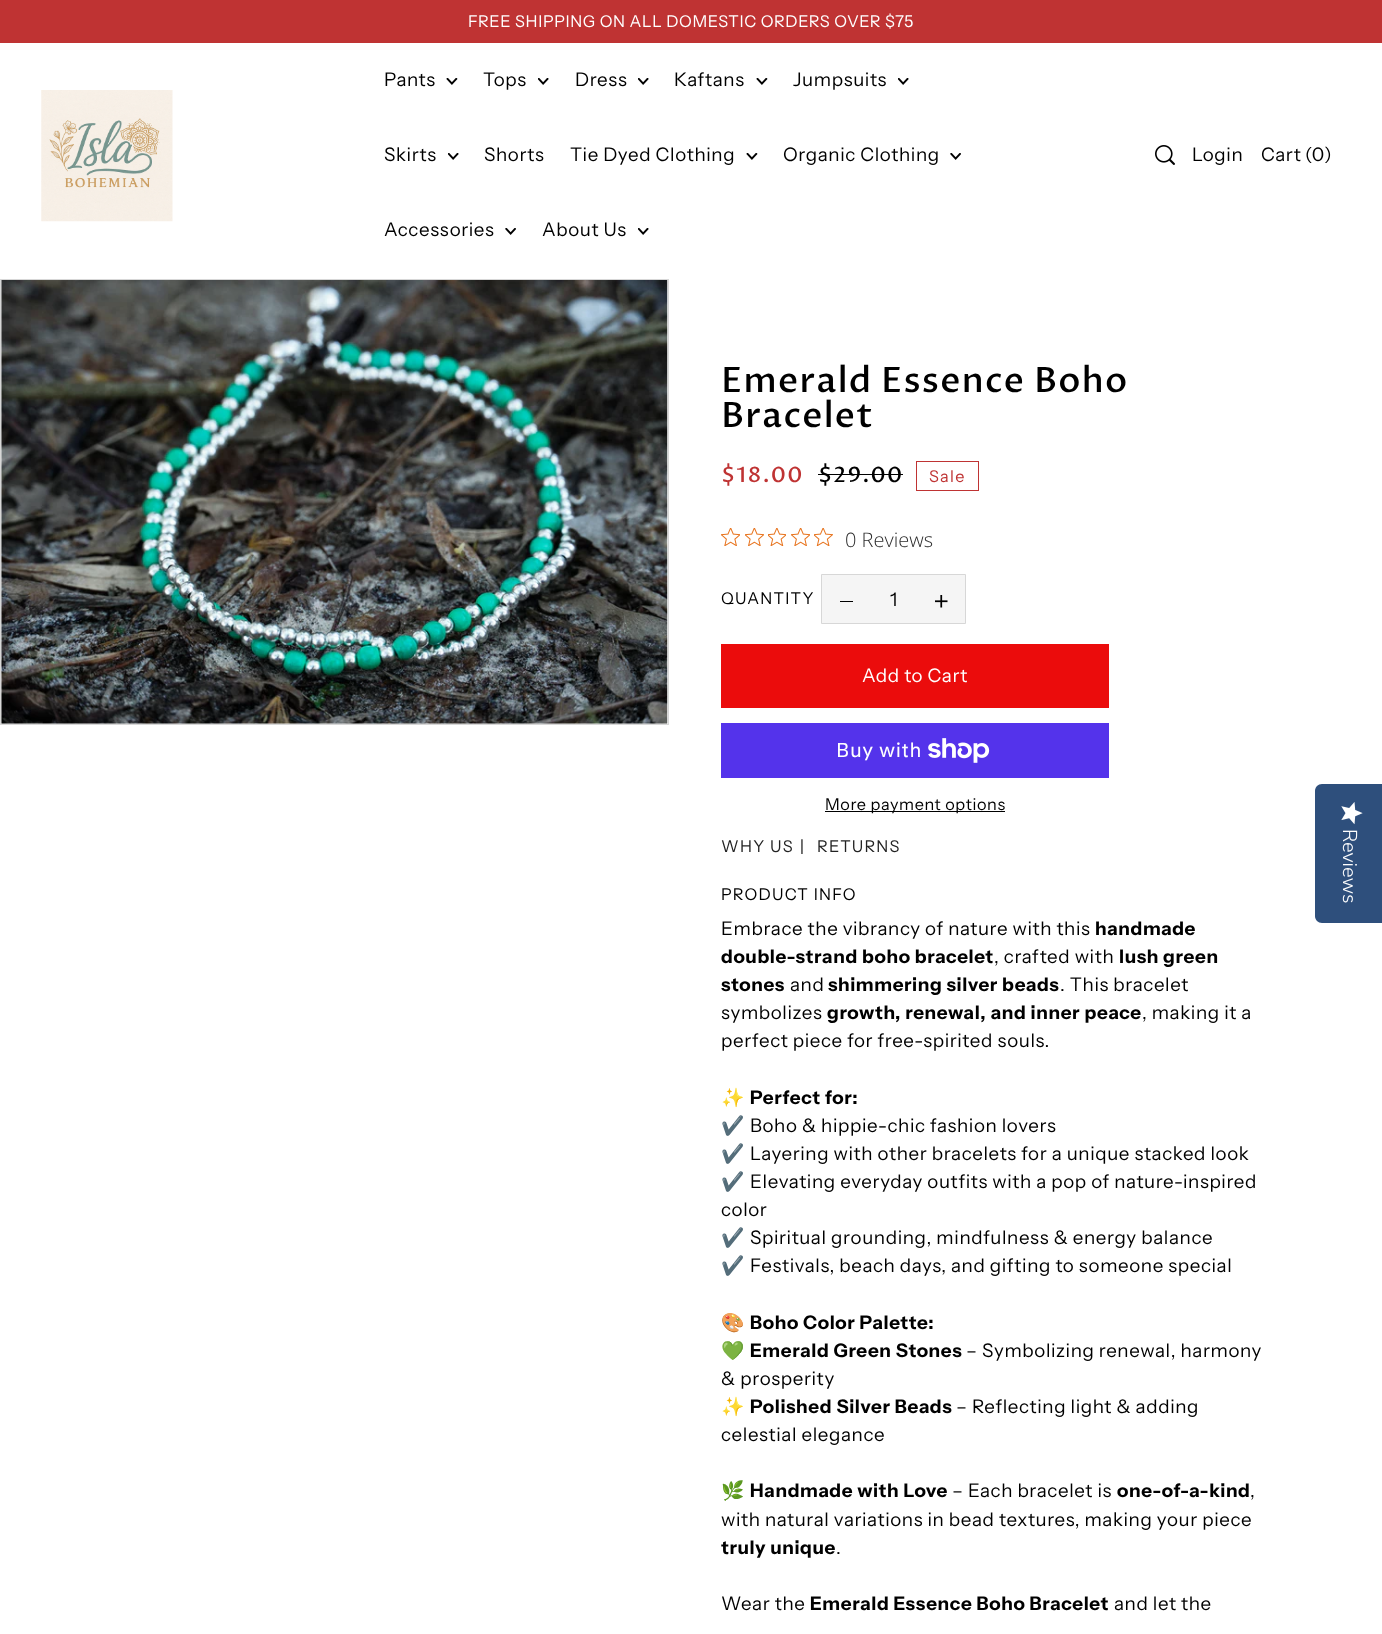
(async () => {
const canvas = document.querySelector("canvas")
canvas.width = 1382
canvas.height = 1634
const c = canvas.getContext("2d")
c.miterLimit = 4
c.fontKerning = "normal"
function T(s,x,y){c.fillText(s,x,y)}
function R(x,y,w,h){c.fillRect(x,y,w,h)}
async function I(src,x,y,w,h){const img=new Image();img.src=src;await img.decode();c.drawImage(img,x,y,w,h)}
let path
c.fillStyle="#fff"
R(0,0,1382,1634)
c.fillStyle="#bf3333"
R(0,0,1382,43)
c.letterSpacing="0.62px"
c.font="16.25px Instrument Sans"
c.fillStyle="#fff"
T("FREE SHIPPING ON ALL DOMESTIC ORDERS OVER $75",468,27)
await I("1.png",41,90,132,132)
c.font="18.75px Instrument Sans"
c.fillStyle="#000"
T("Pants",384,86)
await I("2.png",446,78,12,7)
T("Tops",483,86)
await I("3.png",538,78,11,7)
T("Dress",575,86)
await I("3.png",638,78,11,7)
T("Kaftans",674,86)
await I("2.png",756,78,12,7)
T("Jumpsuits",793,86)
await I("3.png",898,78,11,7)
T("Skirts",384,161)
await I("3.png",448,153,11,7)
T("Shorts",484,161)
T("Tie Dyed Clothing",570,161)
await I("2.png",746,153,12,7)
T("Organic Clothing",783,161)
await I("4.png",950,153,11,7)
T("Accessories",384,236)
await I("4.png",505,228,11,7)
T("About Us",542,236)
await I("3.png",638,228,11,7)
await I("5.png",1155,145,20,20)
T("Login",1192,161)
T("Cart",1261,161)
T("(0",1305,161)
T(")",1324,161)
c.strokeStyle="#d7d7d7"
c.strokeRect(.5,279.5,668,445)
await I("6.png",1,280,667,444)
c.letterSpacing="1.25px"
c.font="500 35px Proza Libre"
T("Emerald Essence Boho",721,392)
T("Bracelet",721,427)
c.font="500 21.25px Proza Libre"
c.fillStyle="#bf3333"
T("$18.00",721,482)
c.fillStyle="#000"
T("$29.00",818,482)
R(818,474,85,1)
c.strokeStyle="#bf3333"
c.strokeRect(916.5,461.5,62,29)
c.font="16.25px Instrument Sans"
c.fillStyle="#bf3333"
T("Sale",929,482)
await I("7.png",721,528,19,18)
await I("8.png",745,528,19,18)
await I("9.png",768,528,18,18)
await I("7.png",791,528,19,18)
await I("10.png",814,528,19,18)
c.letterSpacing="0px"
c.font="300 20px Open Sans"
c.fillStyle="#2c2c2c"
T("0 Reviews",845,547)
c.letterSpacing="1.25px"
c.font="16.25px Instrument Sans"
c.fillStyle="#000"
T("QUANTITY",721,604)
c.fillStyle="#f5f5f5"
c.beginPath()
c.rect(821.5,574.5,144,49)
c.fill()
c.strokeStyle="#d7d7d7"
c.stroke()
c.fillStyle="#000"
R(840,601,13,1)
c.letterSpacing="0.62px"
c.font="18.75px Instrument Sans"
T("1",890,606)
await I("11.png",935,595,13,13)
c.fillStyle="#eb0c0c"
R(721,644,388,64)
c.fillStyle="#fff"
T("Add to Cart",862,682)
c.fillStyle="#5433eb"
R(721,723,388,55)
c.font="20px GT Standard"
c.fillStyle="#fff"
T("Buy with",836,757)
await I("12.png",928,738,62,25)
c.fillStyle="#000"
R(825,811,180,1)
c.font="16.25px Instrument Sans"
T("More payment options",825,810)
c.letterSpacing="1.25px"
c.fillStyle="#222"
T("WHY US",721,852)
c.fillStyle="#000"
T("|",800,852)
c.fillStyle="#222"
T("RETURNS",817,852)
c.fillStyle="#000"
T("PRODUCT INFO",721,900)
c.letterSpacing="0.62px"
c.font="18.75px Instrument Sans"
T("Embrace the vibrancy of nature with this",721,935)
c.font="bold 18.75px Instrument Sans"
T("handmade",1095,935)
T("double-strand boho bracelet",721,963)
c.font="18.75px Instrument Sans"
T(", crafted with",994,963)
c.font="bold 18.75px Instrument Sans"
T("lush green",1119,963)
T("stones",721,991)
c.font="18.75px Instrument Sans"
T("and",790,991)
c.font="bold 18.75px Instrument Sans"
T("shimmering silver beads",828,991)
c.font="18.75px Instrument Sans"
T(". This bracelet",1060,991)
T("symbolizes",721,1019)
c.font="bold 18.75px Instrument Sans"
T("growth, renewal, and inner peace",827,1019)
c.font="18.75px Instrument Sans"
T(", making it a",1142,1019)
T("perfect piece for free-spirited souls.",721,1047)
c.font="18.75px Noto Color Emoji"
T("✨",721,1104)
c.font="bold 18.75px Instrument Sans"
T("Perfect for:",750,1104)
c.font="18.75px Noto Color Emoji"
T("✔️",721,1132)
c.font="18.75px Instrument Sans"
T("Boho & hippie-chic fashion lovers",750,1132)
c.font="18.75px Noto Color Emoji"
T("✔️",721,1160)
c.font="18.75px Instrument Sans"
T("Layering with other bracelets for a unique stacked look",750,1160)
c.font="18.75px Noto Color Emoji"
T("✔️",721,1188)
c.font="18.75px Instrument Sans"
T("Elevating everyday outfits with a pop of nature-inspired",750,1188)
T("color",721,1216)
c.font="18.75px Noto Color Emoji"
T("✔️",721,1244)
c.font="18.75px Instrument Sans"
T("Spiritual grounding, mindfulness & energy balance",750,1244)
c.font="18.75px Noto Color Emoji"
T("✔️",721,1272)
c.font="18.75px Instrument Sans"
T("Festivals, beach days, and gifting to someone special",750,1272)
c.font="18.75px Noto Color Emoji"
T("🎨",721,1329)
c.font="bold 18.75px Instrument Sans"
T("Boho Color Palette:",750,1329)
c.font="18.75px Noto Color Emoji"
T("💚",721,1357)
c.font="bold 18.75px Instrument Sans"
T("Emerald Green Stones",750,1357)
c.font="18.75px Instrument Sans"
T("– Symbolizing renewal, harmony",966,1357)
T("& prosperity",721,1385)
c.font="18.75px Noto Color Emoji"
T("✨",721,1413)
c.font="bold 18.75px Instrument Sans"
T("Polished Silver Beads",750,1413)
c.font="18.75px Instrument Sans"
T("– Reflecting light & adding",956,1413)
T("celestial elegance",721,1441)
c.font="18.75px Noto Color Emoji"
T("🌿",721,1497)
c.font="bold 18.75px Instrument Sans"
T("Handmade with Love",750,1497)
c.font="18.75px Instrument Sans"
T("– Each bracelet is",952,1497)
c.font="bold 18.75px Instrument Sans"
T("one-of-a-kind",1117,1497)
c.font="18.75px Instrument Sans"
T(",",1250,1497)
T("with natural variations in bead textures, making your piece",721,1526)
c.font="bold 18.75px Instrument Sans"
T("truly unique",721,1554)
c.font="18.75px Instrument Sans"
T(".",836,1554)
T("Wear the",721,1610)
c.font="bold 18.75px Instrument Sans"
T("Emerald Essence Boho Bracelet",810,1610)
c.font="18.75px Instrument Sans"
T("and let the",1114,1610)
c.fillStyle="#2e4f7c"
path = new Path2D("M1382 784v139h-60c-4 0-7-3-7-7v-125c0-4 3-7 7-7z")
c.fill(path)
await I("13.png",1341,802,22,23)
c.letterSpacing="0px"
c.font="300 20px Nunito Sans"
c.fillStyle="#fff"
c.save()
c.translate(1343,829)
c.rotate(90 * Math.PI / 180)
c.fillText("Reviews",0,0)
c.restore()
})()
